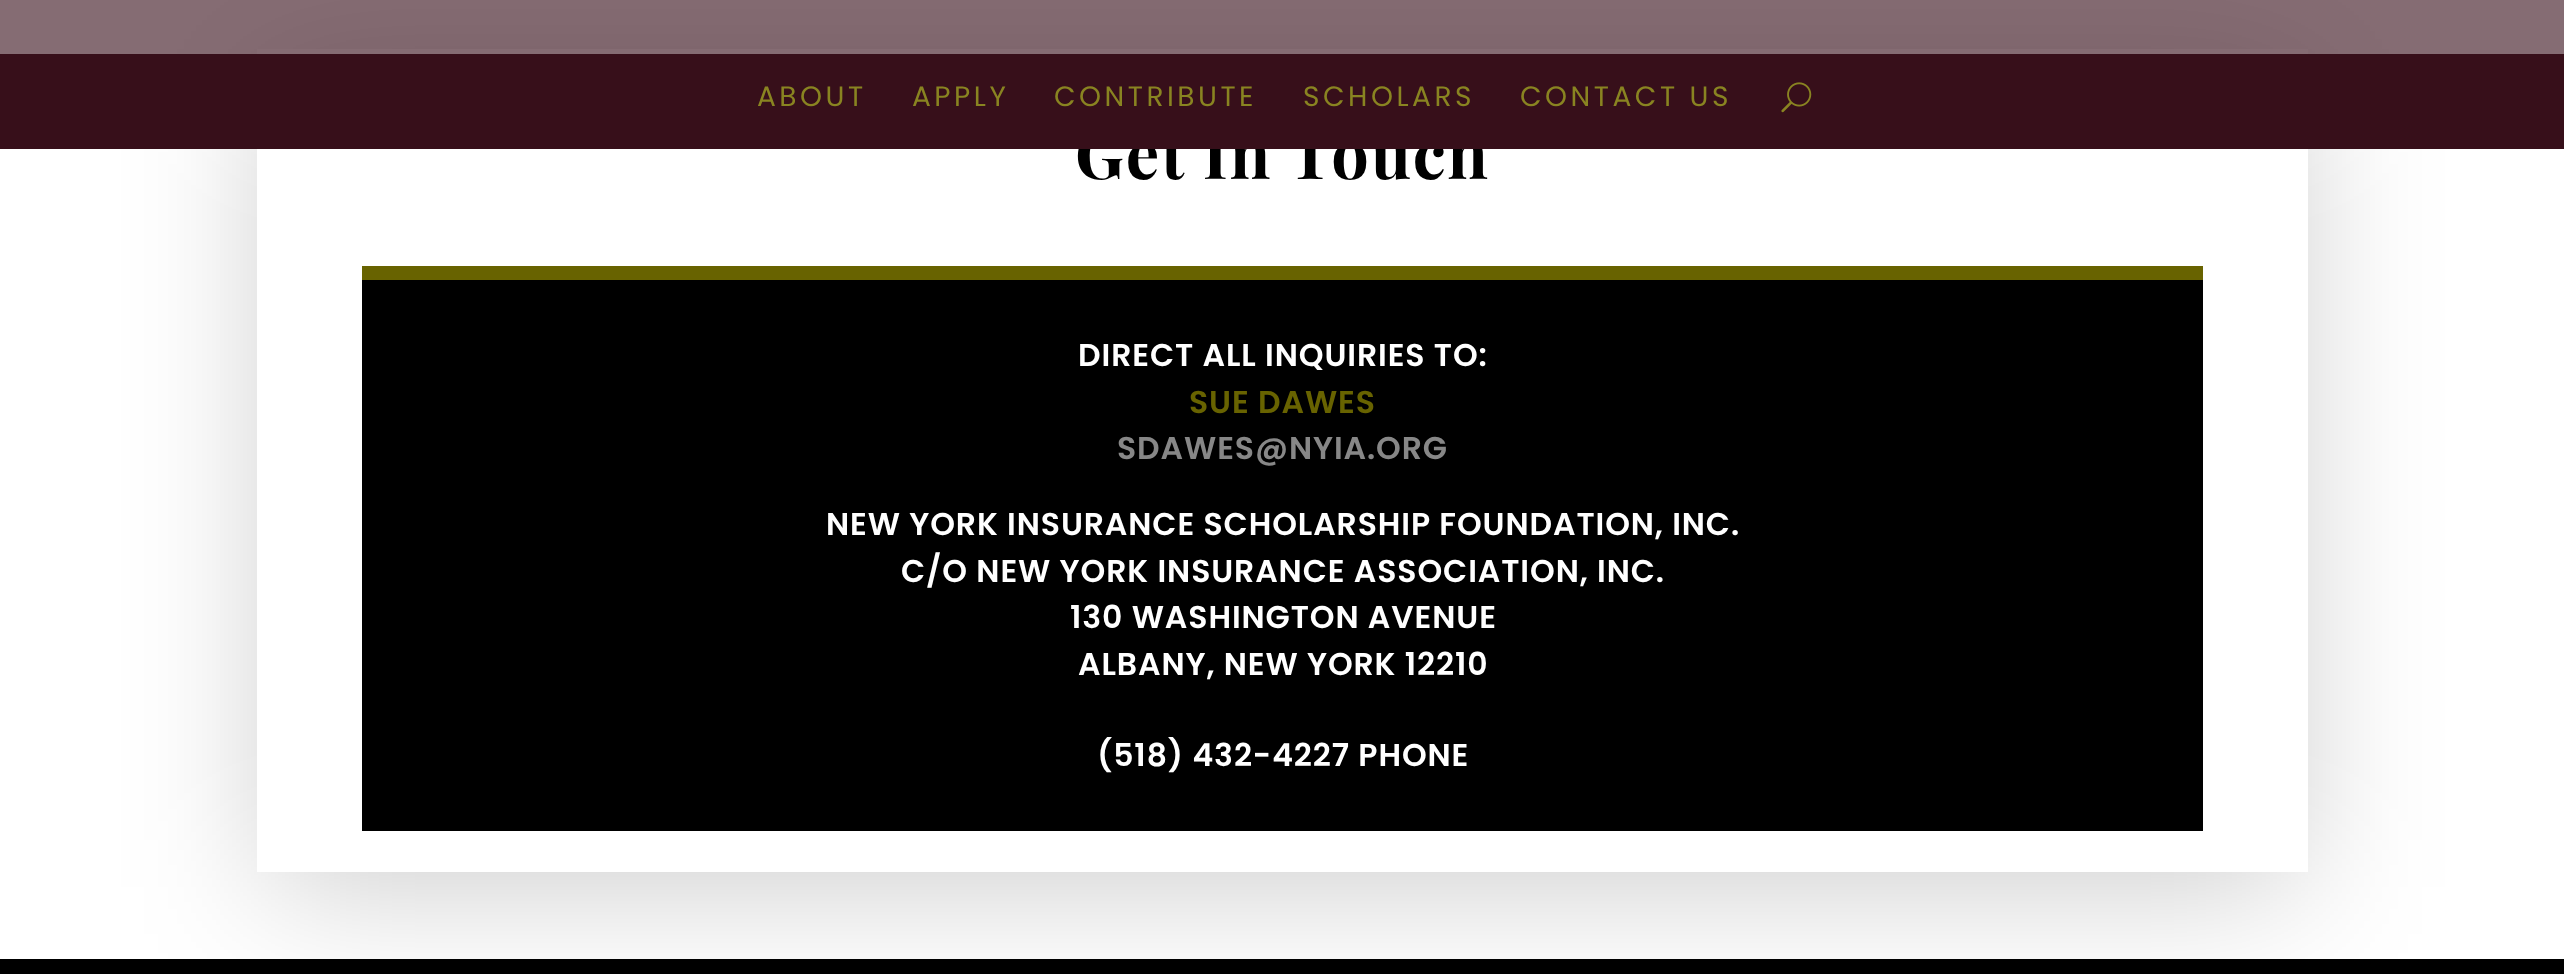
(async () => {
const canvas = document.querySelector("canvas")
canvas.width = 2564
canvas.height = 974
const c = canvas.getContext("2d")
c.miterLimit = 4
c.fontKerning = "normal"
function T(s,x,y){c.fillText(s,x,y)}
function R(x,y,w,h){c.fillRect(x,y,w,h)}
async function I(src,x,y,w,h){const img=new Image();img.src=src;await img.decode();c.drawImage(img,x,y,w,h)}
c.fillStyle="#fff"
R(0,0,2564,974)
c.fillStyle="#000"
R(0,959,2564,15)
c.fillStyle="#00000033"
c.filter="blur(70px)"
c.beginPath()
c.rect(268,86,2030,801)
c.fill()
c.filter="none"
c.fillStyle="#fff"
R(257,49,2051,823)
c.fillStyle="#370f1a9c"
R(0,0,2564,54)
c.letterSpacing="1.75px"
c.font="bold 66.5px Playfair Display"
c.fillStyle="#000"
T("Get In Touch",1075,179)
c.fillStyle="#370f1a"
R(0,54,2564,95)
c.letterSpacing="3.5px"
c.font="28px Poppins"
c.fillStyle="#898421"
T("ABOUT",757,106)
T("APPLY",912,106)
T("CONTRIBUTE",1054,106)
T("SCHOLARS",1303,106)
T("CONTACT US",1520,106)
await I("1.png",1781,82,31,31)
c.fillStyle="#000"
R(362,280,1841,551)
c.fillStyle="#686300"
R(362,266,1841,14)
c.letterSpacing="0.9px"
c.font="600 31.5px Poppins"
c.fillStyle="#fff"
T("DIRECT ALL INQUIRIES TO:",1078,366)
c.fillStyle="#686300"
T("SUE DAWES",1189,413)
c.fillStyle="#878787"
T("SDAWES@NYIA.ORG",1117,459)
c.fillStyle="#fff"
T("NEW YORK INSURANCE SCHOLARSHIP FOUNDATION, INC.",826,535)
T("C/O NEW YORK INSURANCE ASSOCIATION, INC.",901,582)
T("130 WASHINGTON AVENUE",1070,628)
T("ALBANY, NEW YORK 12210",1078,675)
T("(518) 432-4227 PHONE",1097,766)
})()
